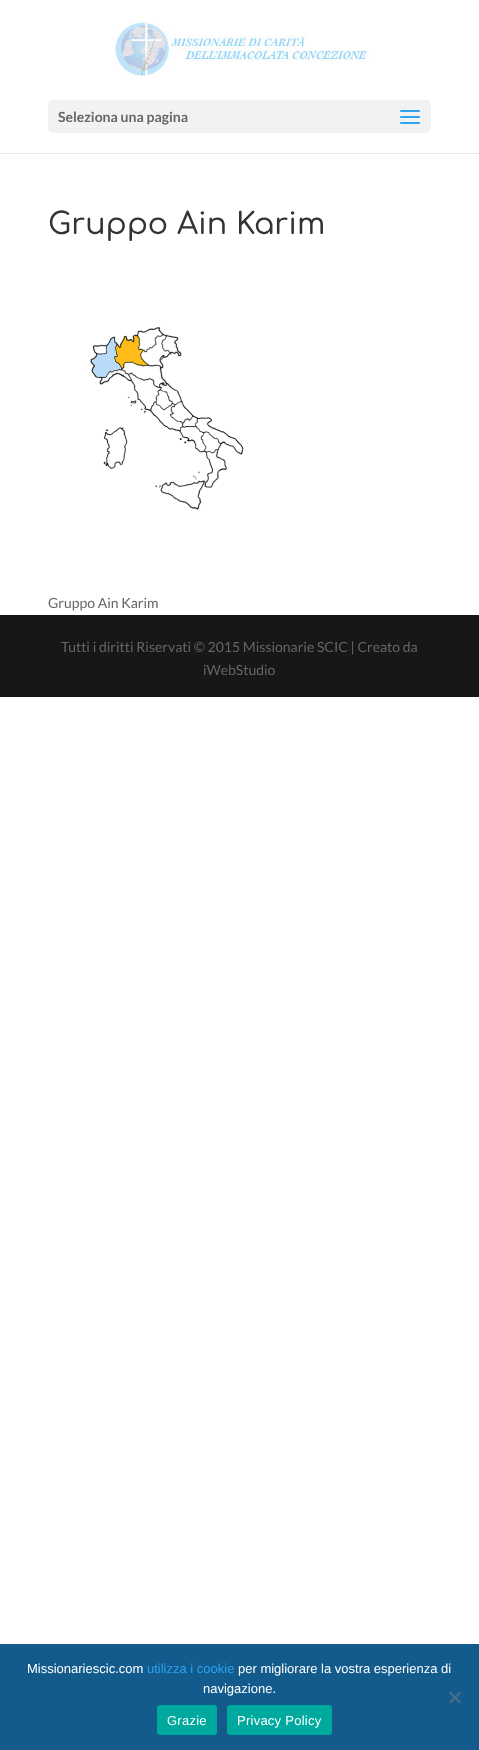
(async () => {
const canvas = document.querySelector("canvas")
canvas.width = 479
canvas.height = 1750
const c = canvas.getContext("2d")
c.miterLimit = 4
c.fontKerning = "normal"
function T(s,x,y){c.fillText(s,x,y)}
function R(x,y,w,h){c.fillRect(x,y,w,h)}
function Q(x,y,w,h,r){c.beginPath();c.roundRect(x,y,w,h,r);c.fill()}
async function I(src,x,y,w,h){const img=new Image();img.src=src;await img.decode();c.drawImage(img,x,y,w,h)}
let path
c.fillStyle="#fff"
R(0,0,479,1750)
c.fillStyle="#e6e6e6"
R(0,153,479,1)
await I("1.png",114,21,255,55)
c.fillStyle="#f2f2f2"
Q(48,100,383,33,5)
c.font="bold 14px Lato"
c.fillStyle="#666"
T("Seleziona una pagina",58,122)
await I("2.png",400,110,20,14)
c.font="500 30px Comfortaa"
c.fillStyle="#333"
T("Gruppo Ain Karim",48,234)
await I("3.png",90,327,154,183)
c.font="14px Lato"
c.fillStyle="#666"
T("Gruppo Ain Karim",48,608)
c.fillStyle="#171717"
R(0,615,479,82)
c.fillStyle="#666"
T("Tutti i diritti Riservati © 2015 Missionarie SCIC | Creato da",61,652)
T("iWebStudio",203,675)
c.fillStyle="#125b8c"
R(0,1644,479,106)
c.font="13px Liberation Sans"
c.fillStyle="#fff"
T("Missionariescic.com",27,1673)
c.fillStyle="#2ea3f2"
T("utilizza i cookie",147,1673)
c.fillStyle="#fff"
T("per migliorare la vostra esperienza di",238,1673)
T("navigazione.",203,1693)
c.fillStyle="#496e86"
path = new Path2D("M459.5 1691.5l1.5 1.5l-10.5 10.5l-1.5-1.5z")
c.fill(path)
path = new Path2D("M449 1693l1.5-1.5l10.5 10.5l-1.5 1.5z")
c.fill(path)
c.fillStyle="#00a99d"
Q(157,1705,60,30,3)
c.letterSpacing="0.25px"
c.fillStyle="#fff"
T("Grazie",167,1725)
c.fillStyle="#00a99d"
Q(227,1705,105,30,3)
c.fillStyle="#fff"
T("Privacy Policy",237,1725)
})()
